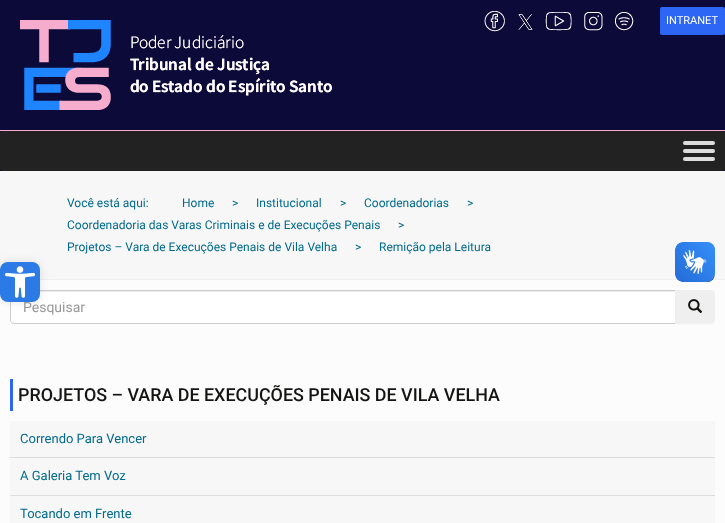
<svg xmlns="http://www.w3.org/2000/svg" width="725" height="523">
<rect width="100%" height="100%" fill="#fcfcfc"/>
<rect width="725" height="130" fill="#0c0a39"/>
<image x="20" y="20" width="312" height="90" href="media/1.png"/>
<image x="484" y="11" width="21" height="21" href="media/2.png"/>
<image x="518" y="14" width="15" height="16" href="media/3.png"/>
<image x="545" y="12" width="27" height="19" href="media/4.png"/>
<image x="584" y="12" width="19" height="19" href="media/5.png"/>
<image x="615" y="12" width="19" height="19" href="media/6.png"/>
<rect x="660" y="7" width="65" height="28" rx="2" fill="#2d66f4"/>
<text x="666" y="24" style="font-family:Roboto;font-size:11px;fill:#fff">INTRANET</text>
<rect y="131" width="725" height="40" fill="#0c0a39"/>
<rect y="130" width="725" height="1" fill="#f6adcd"/>
<rect y="131" width="725" height="40" rx="2" fill="#222"/>
<rect x="683" y="141" width="32" height="4" rx="2" fill="#ddd"/>
<rect x="683" y="149" width="32" height="4" rx="2" fill="#ddd"/>
<rect x="683" y="157" width="32" height="4" rx="2" fill="#ddd"/>
<rect y="171" width="725" height="108" fill="#f7f7f7"/>
<rect x="40" y="279" width="685" height="1" fill="#eee"/>
<text x="67" y="207" style="font-family:Roboto;font-size:12px;fill:#016a8d">Você está aqui:</text>
<text x="182" y="207" style="font-family:Roboto;font-size:12px;fill:#016a8d">Home</text>
<text x="232" y="207" style="font-family:Roboto;font-size:12px;fill:#016a8d">&gt;</text>
<text x="256" y="207" style="font-family:Roboto;font-size:12px;fill:#016a8d">Institucional</text>
<text x="340" y="207" style="font-family:Roboto;font-size:12px;fill:#016a8d">&gt;</text>
<text x="364" y="207" style="font-family:Roboto;font-size:12px;fill:#016a8d">Coordenadorias</text>
<text x="467" y="207" style="font-family:Roboto;font-size:12px;fill:#016a8d">&gt;</text>
<text x="67" y="229" style="font-family:Roboto;font-size:12px;fill:#016a8d">Coordenadoria das Varas Criminais e de Execuções Penais</text>
<text x="398" y="229" style="font-family:Roboto;font-size:12px;fill:#016a8d">&gt;</text>
<text x="67" y="251" style="font-family:Roboto;font-size:12px;fill:#016a8d">Projetos – Vara de Execuções Penais de Vila Velha</text>
<text x="355" y="251" style="font-family:Roboto;font-size:12px;fill:#016a8d">&gt;</text>
<text x="379" y="251" style="font-family:Roboto;font-size:12px;fill:#016a8d">Remição pela Leitura</text>
<path d="M14 290h662v34h-662c-2 0-4-2-4-4v-26c0-2 2-4 4-4z" fill="#fff"/>
<path d="M14 292h661v-1h-661c-2 0-3 1-3 3v1c0-2 1-3 3-3z" fill="#ececec"/>
<path d="M14 290.5h661.5v33h-661.5c-2 0-3.5-1.5-3.5-3.5v-26c0-2 1.5-3.5 3.5-3.5z" fill="none" stroke="#ccc"/>
<rect y="262" width="40" height="40" rx="8" fill="#0000001a" filter="blur(5px)"/>
<text x="23" y="312" style="font-family:Roboto;font-size:14px;fill:#999">Pesquisar</text>
<rect y="262" width="40" height="40" rx="8" fill="#2b7ae5"/>
<image x="5" y="266" width="30" height="32" href="media/7.png"/>
<image x="675" y="242" width="40" height="40" href="media/8.png"/>
<image x="675" y="242" width="40" height="40" href="media/9.png"/>
<path d="M675 290h36c2 0 4 2 4 4v26c0 2-2 4-4 4h-36z" fill="#efefef"/>
<image x="688" y="299" width="15" height="14" href="media/10.png"/>
<rect x="10" y="379" width="3" height="32" fill="#2d66f4"/>
<text x="18" y="401" style="font-family:Roboto;font-size:17.9px;font-weight:500;fill:#141412">PROJETOS – VARA DE EXECUÇÕES PENAIS DE VILA VELHA</text>
<rect x="10" y="421" width="705" height="36" fill="#f7f7f7"/>
<rect x="10" y="457" width="705" height="1" fill="#ddd"/>
<text x="20" y="443" style="font-family:Roboto;font-size:13px;fill:#016a8d">Correndo Para Vencer</text>
<rect x="10" y="458" width="705" height="37" fill="#f7f7f7"/>
<rect x="10" y="495" width="705" height="1" fill="#ddd"/>
<text x="20" y="480" style="font-family:Roboto;font-size:13px;fill:#016a8d">A Galeria Tem Voz</text>
<rect x="10" y="496" width="705" height="27" fill="#f7f7f7"/>
<text x="20" y="518" style="font-family:Roboto;font-size:13px;fill:#016a8d">Tocando em Frente</text>
</svg>
